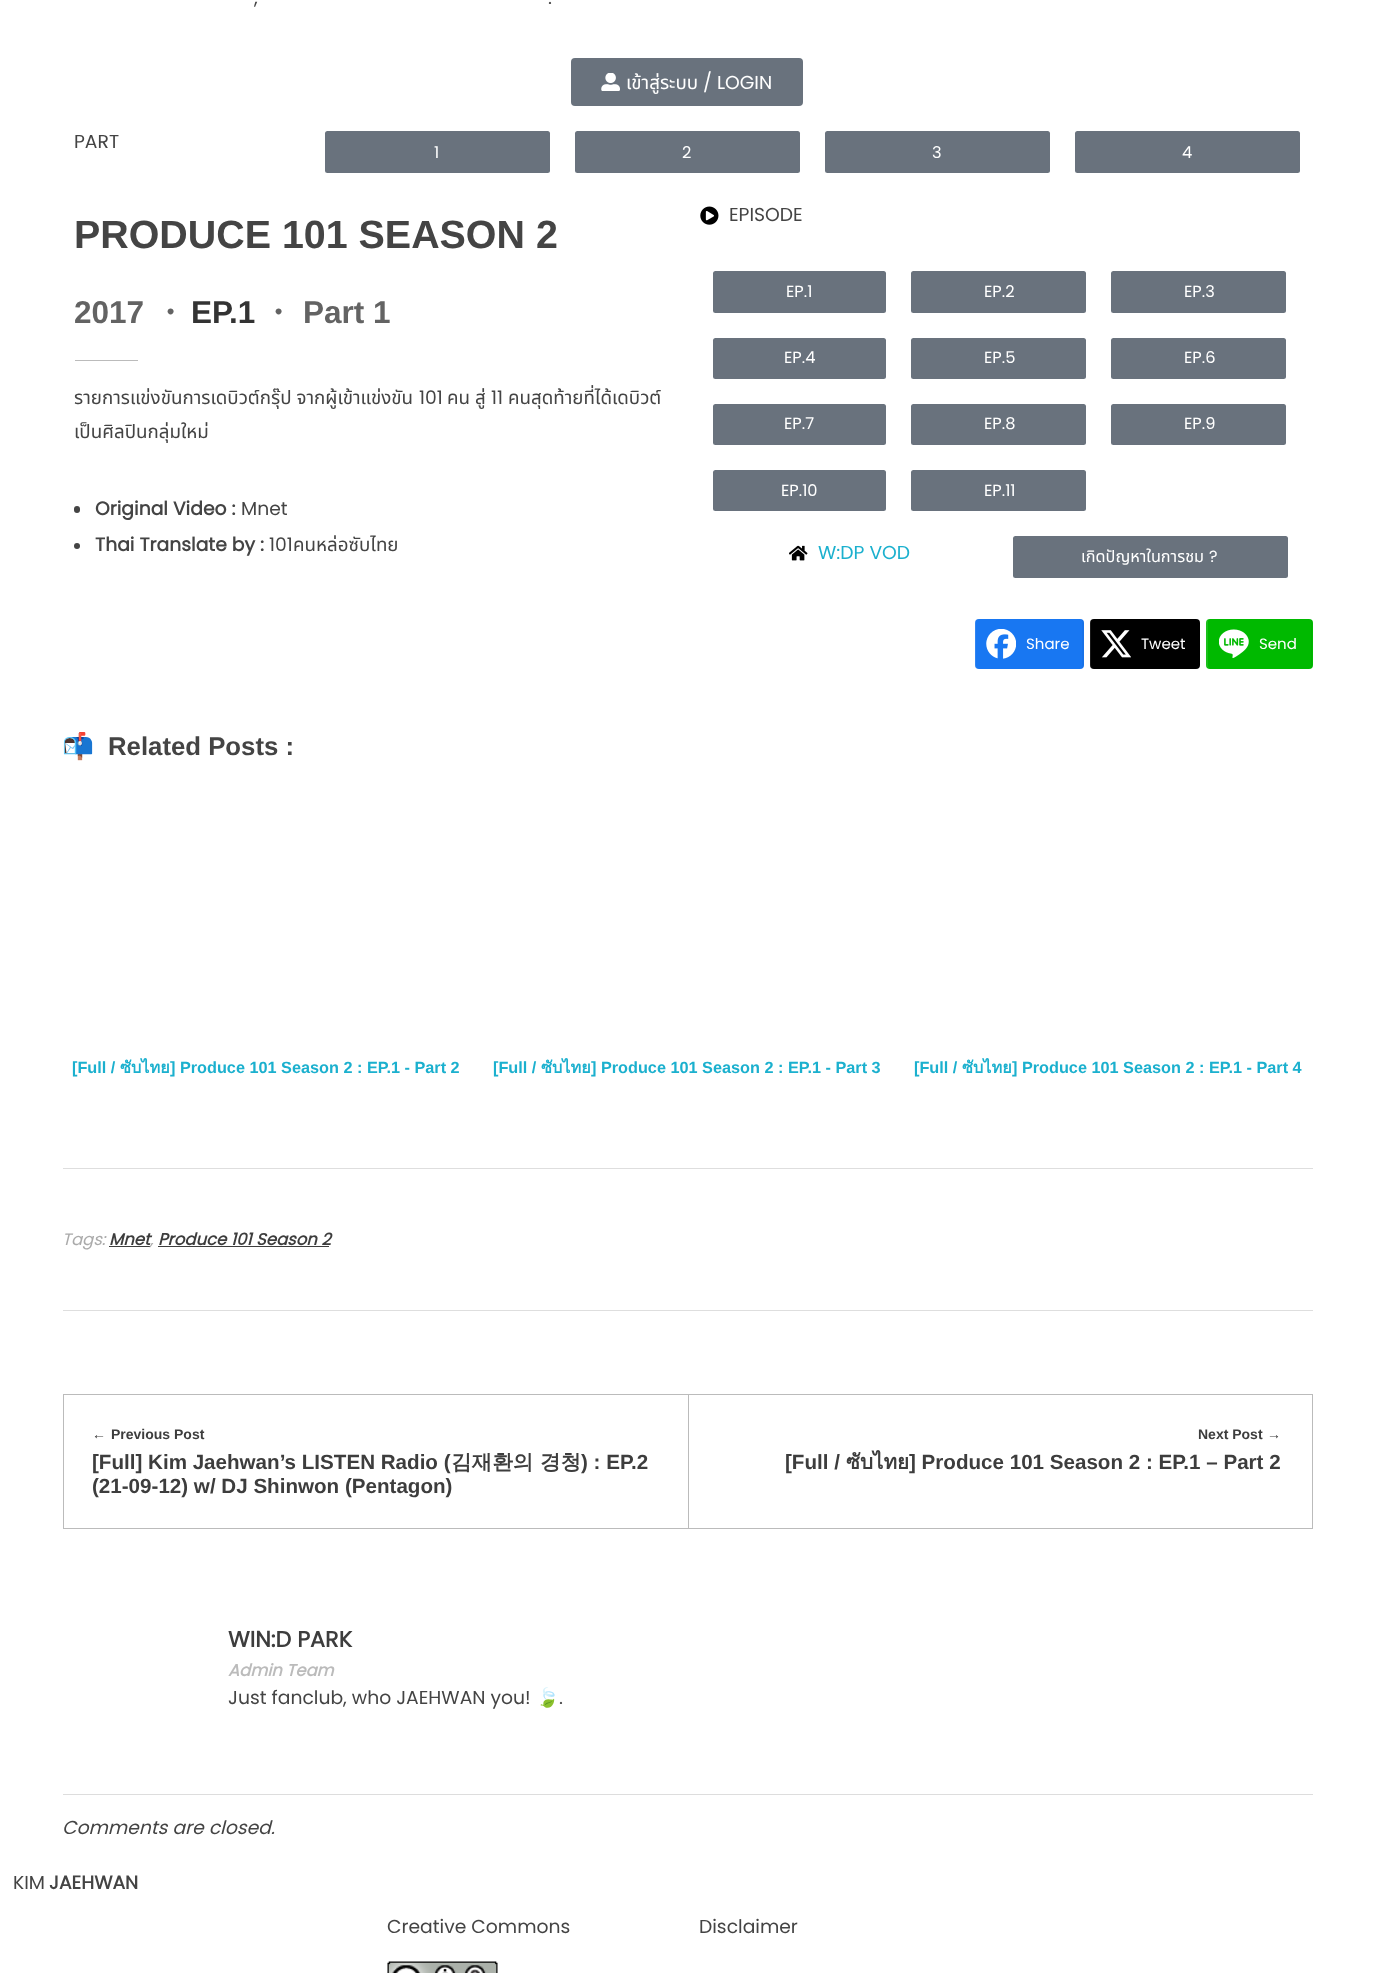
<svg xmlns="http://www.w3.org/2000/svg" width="1373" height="1973">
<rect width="100%" height="100%" fill="#fff"/>
<text x="254" y="4" style="font-family:Poppins;font-size:18.75px;fill:#444">,</text>
<text x="548" y="4" style="font-family:Poppins;font-size:18.75px;fill:#444">.</text>
<rect x="571" y="58" width="232" height="48" rx="4" fill="#69727d"/>
<image x="601" y="73" width="19" height="18" href="media/1.png"/>
<text x="626" y="89" style="font-family:Noto Sans Thai;font-size:18.75px;fill:#fff">เข้าสู่ระบบ</text>
<text x="703" y="89" style="font-family:Poppins;font-size:18.75px;fill:#fff">/ LOGIN</text>
<text x="74" y="148" style="font-family:Poppins;font-size:18.75px;fill:#444">PART</text>
<rect x="325" y="131" width="225" height="42" rx="2.5" fill="#69727d"/>
<text x="434" y="158" style="font-family:Poppins;font-size:16.25px;fill:#fff">1</text>
<rect x="575" y="131" width="225" height="42" rx="2.5" fill="#69727d"/>
<text x="682" y="158" style="font-family:Poppins;font-size:16.25px;fill:#fff">2</text>
<rect x="825" y="131" width="225" height="42" rx="2.5" fill="#69727d"/>
<text x="932" y="158" style="font-family:Poppins;font-size:16.25px;fill:#fff">3</text>
<rect x="1075" y="131" width="225" height="42" rx="2.5" fill="#69727d"/>
<text x="1182" y="158" style="font-family:Poppins;font-size:16.25px;fill:#fff">4</text>
<text x="74" y="248" style="font-family:Liberation Sans;font-size:39.4px;font-weight:bold;fill:#444">PRODUCE 101 SEASON 2</text>
<text x="74" y="323" style="font-family:Liberation Sans;font-size:31.5px;font-weight:bold;fill:#636363">2017</text>
<text x="154" y="323" style="font-family:WenQuanYi Zen Hei;font-size:31.5px;font-weight:bold;fill:#636363">・</text>
<text x="191" y="323" style="font-family:Liberation Sans;font-size:31.5px;font-weight:bold;fill:#333">EP.1</text>
<text x="262" y="323" style="font-family:WenQuanYi Zen Hei;font-size:31.5px;font-weight:bold;fill:#636363">・</text>
<text x="303" y="323" style="font-family:Liberation Sans;font-size:31.5px;font-weight:bold;fill:#636363">Part 1</text>
<rect x="75" y="360" width="63" height="1" fill="#bbb"/>
<text x="74" y="404" style="font-family:Noto Sans Thai;font-size:18.75px;fill:#444">รายการแข่งขันการเดบิวต์กรุ๊ป จากผู้เข้าแข่งขัน</text>
<text x="419" y="404" style="font-family:Poppins;font-size:18.75px;fill:#444">101</text>
<text x="447" y="404" style="font-family:Noto Sans Thai;font-size:18.75px;fill:#444">คน สู่</text>
<text x="491" y="404" style="font-family:Poppins;font-size:18.75px;fill:#444">11</text>
<text x="508" y="404" style="font-family:Noto Sans Thai;font-size:18.75px;fill:#444">คนสุดท้ายที่ได้เดบิวต์</text>
<text x="74" y="438" style="font-family:Noto Sans Thai;font-size:18.75px;fill:#444">เป็นศิลปินกลุ่มใหม่</text>
<rect x="74" y="506" width="6" height="7" rx="3" fill="#444"/>
<text x="95" y="515" style="font-family:Poppins;font-size:18.75px;font-weight:bold;fill:#444">Original Video :</text>
<text x="241" y="515" style="font-family:Poppins;font-size:18.75px;fill:#444">Mnet</text>
<circle cx="77" cy="546" r="3" fill="#444"/>
<text x="95" y="551" style="font-family:Poppins;font-size:18.75px;font-weight:bold;fill:#444">Thai Translate by :</text>
<text x="269" y="551" style="font-family:Poppins;font-size:18.75px;fill:#444">101</text>
<text x="293" y="551" style="font-family:Noto Sans Thai;font-size:18.75px;fill:#444">คนหล่อซับไทย</text>
<image x="700" y="206" width="19" height="19" href="media/2.png"/>
<text x="729" y="221" style="font-family:Poppins;font-size:18.75px;fill:#444">EPISODE</text>
<rect x="713" y="271" width="173" height="42" rx="2.5" fill="#69727d"/>
<text x="786" y="297" style="font-family:Poppins;font-size:16.25px;fill:#fff">EP.1</text>
<rect x="911" y="271" width="175" height="42" rx="2.5" fill="#69727d"/>
<text x="984" y="297" style="font-family:Poppins;font-size:16.25px;fill:#fff">EP.2</text>
<rect x="1111" y="271" width="175" height="42" rx="2.5" fill="#69727d"/>
<text x="1184" y="297" style="font-family:Poppins;font-size:16.25px;fill:#fff">EP.3</text>
<rect x="713" y="338" width="173" height="41" rx="2.5" fill="#69727d"/>
<text x="784" y="363" style="font-family:Poppins;font-size:16.25px;fill:#fff">EP.4</text>
<rect x="911" y="338" width="175" height="41" rx="2.5" fill="#69727d"/>
<text x="984" y="363" style="font-family:Poppins;font-size:16.25px;fill:#fff">EP.5</text>
<rect x="1111" y="338" width="175" height="41" rx="2.5" fill="#69727d"/>
<text x="1184" y="363" style="font-family:Poppins;font-size:16.25px;fill:#fff">EP.6</text>
<rect x="713" y="404" width="173" height="41" rx="2.5" fill="#69727d"/>
<text x="784" y="429" style="font-family:Poppins;font-size:16.25px;fill:#fff">EP.7</text>
<rect x="911" y="404" width="175" height="41" rx="2.5" fill="#69727d"/>
<text x="984" y="429" style="font-family:Poppins;font-size:16.25px;fill:#fff">EP.8</text>
<rect x="1111" y="404" width="175" height="41" rx="2.5" fill="#69727d"/>
<text x="1184" y="429" style="font-family:Poppins;font-size:16.25px;fill:#fff">EP.9</text>
<rect x="713" y="470" width="173" height="41" rx="2.5" fill="#69727d"/>
<text x="781" y="496" style="font-family:Poppins;font-size:16.25px;fill:#fff">EP.10</text>
<rect x="911" y="470" width="175" height="41" rx="2.5" fill="#69727d"/>
<text x="984" y="496" style="font-family:Poppins;font-size:16.25px;fill:#fff">EP.11</text>
<image x="789" y="545" width="19" height="16" href="media/3.png"/>
<text x="818" y="559" style="font-family:Poppins;font-size:18.75px;fill:#1bb0ce">W:DP VOD</text>
<rect x="1013" y="536" width="275" height="42" rx="2.5" fill="#69727d"/>
<text x="1081" y="562" style="font-family:Noto Sans Thai;font-size:16.25px;fill:#fff">เกิดปัญหาในการชม</text>
<text x="1209" y="562" style="font-family:Poppins;font-size:16.25px;fill:#fff">?</text>
<rect x="975" y="619" width="109" height="50" rx="4" fill="#1877f2"/>
<path d="M1081 669c0-1 1-2 1-4v-43c0-2-1-3-2-3c2 0 3 1 4 2v45c-1 1-2 2-3 3z" fill="#0000000a"/>
<path d="M978 669c-2-1-3-2-3-4v-43c0-2 2-3 4-3c-2 0-3 1-3 3v43c0 2 1 3 2 4z" fill="#ffffff1a"/>
<image x="986" y="629" width="30" height="30" href="media/4.png"/>
<text x="1026" y="649" style="font-family:Poppins;font-size:15px;fill:#fff">Share</text>
<rect x="1090" y="619" width="110" height="50" rx="4" fill="#000"/>
<path d="M1197 669c1-1 2-2 2-4v-43c0-2-1-3-3-3c2 0 4 1 4 3v43c0 2-1 3-3 4z" fill="#0000000a"/>
<path d="M1094 619c-2 0-3 1-3 3v43c0 2 1 3 2 4c-2-1-3-2-3-4v-43c0-2 2-3 4-3z" fill="#ffffff1a"/>
<image x="1101" y="630" width="30" height="28" href="media/5.png"/>
<text x="1141" y="649" style="font-family:Poppins;font-size:15px;fill:#fff">Tweet</text>
<rect x="1206" y="619" width="107" height="50" rx="4" fill="#00b900"/>
<path d="M1310 669c0-1 1-2 1-4v-43c0-2-1-3-2-3c2 0 3 1 3 3v43c0 2-1 3-2 4z" fill="#0000000a"/>
<path d="M1210 619c-1 0-2 1-2 3v43c0 2 1 3 1 4c-1-1-2-2-3-3v-45c1-1 2-2 4-2z" fill="#ffffff1a"/>
<image x="1219" y="629" width="30" height="29" href="media/6.png"/>
<text x="1259" y="649" style="font-family:Poppins;font-size:15px;fill:#fff">Send</text>
<text x="62" y="755" style="font-family:Noto Color Emoji;font-size:25.75px;font-weight:bold;fill:#444">📬</text>
<text x="108" y="755" style="font-family:Liberation Sans;font-size:25.75px;font-weight:bold;fill:#444">Related Posts :</text>
<text x="72" y="1073" style="font-family:Liberation Sans;font-size:16.25px;font-weight:bold;fill:#1bb0ce">[Full /</text>
<text x="120" y="1073" style="font-family:Loma;font-size:16.25px;font-weight:bold;fill:#1bb0ce">ซับไทย</text>
<text x="170" y="1073" style="font-family:Liberation Sans;font-size:16.25px;font-weight:bold;fill:#1bb0ce">] Produce 101 Season 2 : EP.1 - Part 2</text>
<text x="493" y="1073" style="font-family:Liberation Sans;font-size:16.25px;font-weight:bold;fill:#1bb0ce">[Full /</text>
<text x="541" y="1073" style="font-family:Loma;font-size:16.25px;font-weight:bold;fill:#1bb0ce">ซับไทย</text>
<text x="591" y="1073" style="font-family:Liberation Sans;font-size:16.25px;font-weight:bold;fill:#1bb0ce">] Produce 101 Season 2 : EP.1 - Part 3</text>
<text x="914" y="1073" style="font-family:Liberation Sans;font-size:16.25px;font-weight:bold;fill:#1bb0ce">[Full /</text>
<text x="962" y="1073" style="font-family:Loma;font-size:16.25px;font-weight:bold;fill:#1bb0ce">ซับไทย</text>
<text x="1012" y="1073" style="font-family:Liberation Sans;font-size:16.25px;font-weight:bold;fill:#1bb0ce">] Produce 101 Season 2 : EP.1 - Part 4</text>
<rect x="63" y="1168" width="1250" height="1" fill="#dedede"/>
<rect x="63" y="1310" width="1250" height="1" fill="#dedede"/>
<text x="62" y="1245" style="font-family:Poppins;font-size:16.5px;font-style:italic;fill:#aaa">Tags:</text>
<text x="109" y="1245" style="font-family:Poppins;font-size:16.5px;font-weight:bold;font-style:italic;fill:#3d3d3d">Mnet</text>
<rect x="109" y="1246" width="41" height="1" fill="#3d3d3d"/>
<text x="158" y="1245" style="font-family:Poppins;font-size:16.5px;font-weight:bold;font-style:italic;fill:#3d3d3d">Produce 101 Season 2</text>
<rect x="158" y="1246" width="171" height="1" fill="#3d3d3d"/>
<text x="150" y="1245" style="font-family:Poppins;font-size:16.5px;font-style:italic;fill:#aaa">,</text>
<rect x="63" y="1394" width="625" height="1" fill="#bbb"/>
<rect x="63" y="1528" width="625" height="1" fill="#bbb"/>
<rect x="63" y="1394" width="1" height="135" fill="#bbb"/>
<text x="92" y="1439" style="font-family:Liberation Sans;font-size:14px;font-weight:bold;fill:#3d3d3d">←</text>
<text x="111" y="1439" style="font-family:Liberation Sans;font-size:14px;font-weight:bold;fill:#3d3d3d">Previous Post</text>
<text x="92" y="1469" style="font-family:Liberation Sans;font-size:20.6px;font-weight:bold;fill:#3d3d3d">[Full] Kim Jaehwan’s LISTEN Radio (</text>
<text x="451" y="1469" style="font-family:WenQuanYi Zen Hei;font-size:20.6px;font-weight:bold;fill:#3d3d3d">김재환의</text>
<text x="540" y="1469" style="font-family:WenQuanYi Zen Hei;font-size:20.6px;font-weight:bold;fill:#3d3d3d">경청</text>
<text x="581" y="1469" style="font-family:Liberation Sans;font-size:20.6px;font-weight:bold;fill:#3d3d3d">) : EP.2</text>
<text x="92" y="1493" style="font-family:Liberation Sans;font-size:20.6px;font-weight:bold;fill:#3d3d3d">(21-09-12) w/ DJ Shinwon (Pentagon)</text>
<rect x="688.5" y="1394.5" width="624" height="134" fill="none" stroke="#bbb"/>
<text x="1198" y="1439" style="font-family:Liberation Sans;font-size:14px;font-weight:bold;fill:#3d3d3d">Next Post</text>
<text x="1267" y="1439" style="font-family:Liberation Sans;font-size:14px;font-weight:bold;fill:#3d3d3d">→</text>
<text x="785" y="1469" style="font-family:Liberation Sans;font-size:20.6px;font-weight:bold;fill:#3d3d3d">[Full /</text>
<text x="846" y="1469" style="font-family:Loma;font-size:20.6px;font-weight:bold;fill:#3d3d3d">ซับไทย</text>
<text x="909" y="1469" style="font-family:Liberation Sans;font-size:20.6px;font-weight:bold;fill:#3d3d3d">] Produce 101 Season 2 : EP.1 – Part 2</text>
<text x="228" y="1647" style="font-family:Poppins;font-size:22.25px;font-weight:bold;fill:#3d3d3d">WIN:D PARK</text>
<text x="228" y="1676" style="font-family:Poppins;font-size:16.5px;font-weight:bold;font-style:italic;fill:#bbb">Admin Team</text>
<text x="228" y="1704" style="font-family:Poppins;font-size:18.75px;fill:#444">Just fanclub, who JAEHWAN you!</text>
<text x="536" y="1704" style="font-family:Noto Color Emoji;font-size:18.75px;fill:#444">🍃</text>
<text x="559" y="1704" style="font-family:Poppins;font-size:18.75px;fill:#444">.</text>
<rect x="63" y="1794" width="1250" height="1" fill="#ddd"/>
<text x="62" y="1834" style="font-family:Poppins;font-size:18.75px;font-style:italic;fill:#444">Comments are closed.</text>
<text x="13" y="1889" style="font-family:Poppins;font-size:18.75px;fill:#444">KIM</text>
<text x="49" y="1889" style="font-family:Poppins;font-size:18.75px;font-weight:bold;fill:#444">JAEHWAN</text>
<text x="387" y="1933" style="font-family:Poppins;font-size:18.75px;fill:#444">Creative Commons</text>
<image x="387" y="1961" width="111" height="12" href="media/7.png"/>
<text x="699" y="1933" style="font-family:Poppins;font-size:18.75px;fill:#444">Disclaimer</text>
</svg>
